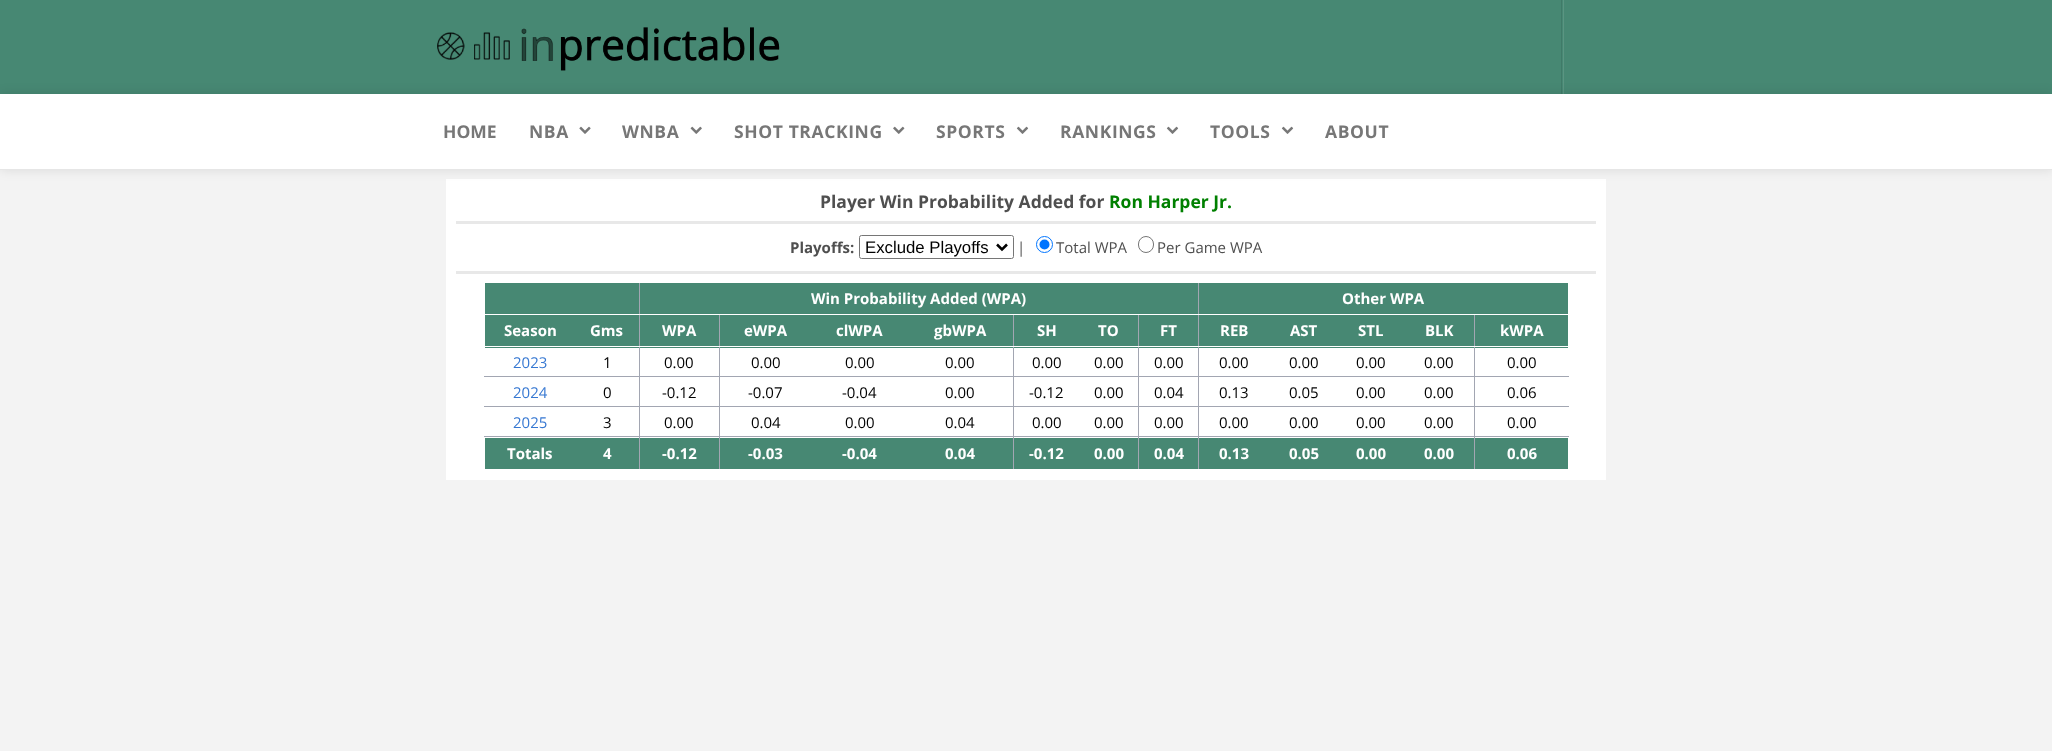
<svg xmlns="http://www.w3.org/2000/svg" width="2052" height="751">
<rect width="100%" height="100%" fill="#f3f3f3"/>
<rect width="2052" height="94" fill="#478873"/>
<rect x="1563" width="1" height="94" fill="#5b9582"/>
<rect x="1561" width="1" height="94" fill="#407a68"/>
<image x="437" y="27" width="343" height="44" href="media/1.png"/>
<rect x="446" y="179" width="1160" height="301" fill="#fff"/>
<rect y="94" width="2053" height="76" fill="#0000001a" filter="blur(6px)"/>
<rect y="94" width="2052" height="75" fill="#fff"/>
<rect y="169" width="2052" height="1" fill="#e6e6e6"/>
<text x="443" y="138" style="font-family:Open Sans;font-size:17.5px;font-weight:bold;fill:#777">HOME</text>
<text x="529" y="138" style="font-family:Open Sans;font-size:17.5px;font-weight:bold;letter-spacing:0.6px;fill:#777">NBA</text>
<image x="579" y="126" width="12" height="8" href="media/2.png"/>
<text x="622" y="138" style="font-family:Open Sans;font-size:17.5px;font-weight:bold;letter-spacing:0.6px;fill:#777">WNBA</text>
<image x="690" y="126" width="12" height="8" href="media/3.png"/>
<text x="734" y="138" style="font-family:Open Sans;font-size:17.5px;font-weight:bold;letter-spacing:0.6px;fill:#777">SHOT TRACKING</text>
<image x="893" y="126" width="12" height="8" href="media/4.png"/>
<text x="936" y="138" style="font-family:Open Sans;font-size:17.5px;font-weight:bold;letter-spacing:0.6px;fill:#777">SPORTS</text>
<image x="1016" y="126" width="13" height="8" href="media/5.png"/>
<text x="1060" y="138" style="font-family:Open Sans;font-size:17.5px;font-weight:bold;letter-spacing:0.6px;fill:#777">RANKINGS</text>
<image x="1166" y="126" width="13" height="8" href="media/5.png"/>
<text x="1210" y="138" style="font-family:Open Sans;font-size:17.5px;font-weight:bold;letter-spacing:0.6px;fill:#777">TOOLS</text>
<image x="1281" y="126" width="13" height="8" href="media/5.png"/>
<text x="1325" y="138" style="font-family:Open Sans;font-size:17.5px;font-weight:bold;letter-spacing:0.6px;fill:#777">ABOUT</text>
<text x="820" y="208" style="font-family:Open Sans;font-size:17.5px;font-weight:bold;fill:#4f4f4f">Player Win Probability Added for</text>
<text x="1109" y="208" style="font-family:Open Sans;font-size:17.5px;font-weight:bold;fill:#008000">Ron Harper Jr.</text>
<rect x="456" y="221" width="1140" height="3" fill="#e8e8e8"/>
<text x="790" y="253" style="font-family:Open Sans;font-size:15px;font-weight:bold;fill:#4f4f4f">Playoffs:</text>
<rect x="859.5" y="235.5" width="154" height="23" rx="2" fill="none" stroke="#767676"/>
<path d="M997 244.5l5 5l5-5" fill="none" stroke="#000" stroke-width="2.5"/>
<text x="865" y="253" style="font-family:Liberation Sans;font-size:16.75px;fill:#000">Exclude Playoffs</text>
<text x="1017" y="253" style="font-family:Open Sans;font-size:15px;fill:#4f4f4f">|</text>
<circle cx="1044.5" cy="244.5" r="8" fill="none" stroke="#0075ff"/>
<circle cx="1044.5" cy="244.5" r="5" fill="#0075ff"/>
<text x="1056" y="253" style="font-family:Open Sans;font-size:15px;fill:#4f4f4f">Total WPA</text>
<rect x="1138.5" y="236.5" width="15" height="16" rx="7.5" fill="none" stroke="#767676"/>
<text x="1157" y="253" style="font-family:Open Sans;font-size:15px;fill:#4f4f4f">Per Game WPA</text>
<rect x="456" y="271" width="1140" height="3" fill="#e8e8e8"/>
<rect x="485" y="283" width="154" height="31" fill="#478873"/>
<rect x="1199" y="315" width="275" height="33" fill="#478873"/>
<rect x="1475" y="315" width="93" height="33" fill="#478873"/>
<rect x="1474" y="436" width="1" height="34" fill="#a2a6b2"/>
<rect x="1474" y="436" width="95" height="1" fill="#a2a6b2"/>
<rect x="1474" y="406" width="1" height="32" fill="#a2a6b2"/>
<rect x="1474" y="406" width="95" height="1" fill="#a2a6b2"/>
<rect x="1474" y="376" width="1" height="32" fill="#a2a6b2"/>
<rect x="1474" y="376" width="95" height="1" fill="#a2a6b2"/>
<rect x="1474" y="346" width="1" height="32" fill="#a2a6b2"/>
<rect x="1474" y="346" width="95" height="1" fill="#fff"/>
<rect x="1474" y="314" width="1" height="34" fill="#a2a6b2"/>
<rect x="1198" y="436" width="1" height="34" fill="#a2a6b2"/>
<rect x="1198" y="436" width="277" height="1" fill="#a2a6b2"/>
<rect x="1198" y="406" width="1" height="32" fill="#a2a6b2"/>
<rect x="1198" y="406" width="277" height="1" fill="#a2a6b2"/>
<rect x="1198" y="376" width="1" height="32" fill="#a2a6b2"/>
<rect x="1198" y="376" width="277" height="1" fill="#a2a6b2"/>
<rect x="1198" y="346" width="1" height="32" fill="#a2a6b2"/>
<rect x="1198" y="346" width="277" height="1" fill="#fff"/>
<rect x="1198" y="314" width="1" height="34" fill="#a2a6b2"/>
<rect x="1198" y="314" width="277" height="1" fill="#fff"/>
<rect x="1198" y="283" width="1" height="32" fill="#a2a6b2"/>
<rect x="640" y="315" width="79" height="33" fill="#478873"/>
<rect x="720" y="315" width="293" height="33" fill="#478873"/>
<rect x="1014" y="315" width="124" height="33" fill="#478873"/>
<rect x="1139" y="315" width="59" height="33" fill="#478873"/>
<rect x="1138" y="436" width="1" height="34" fill="#a2a6b2"/>
<rect x="1138" y="436" width="61" height="1" fill="#a2a6b2"/>
<rect x="1138" y="406" width="1" height="32" fill="#a2a6b2"/>
<rect x="1138" y="406" width="61" height="1" fill="#a2a6b2"/>
<rect x="1138" y="376" width="1" height="32" fill="#a2a6b2"/>
<rect x="1138" y="376" width="61" height="1" fill="#a2a6b2"/>
<rect x="1138" y="346" width="1" height="32" fill="#a2a6b2"/>
<rect x="1138" y="346" width="61" height="1" fill="#fff"/>
<rect x="1138" y="314" width="1" height="34" fill="#a2a6b2"/>
<rect x="1013" y="436" width="1" height="34" fill="#a2a6b2"/>
<rect x="1013" y="436" width="126" height="1" fill="#a2a6b2"/>
<rect x="1013" y="406" width="1" height="32" fill="#a2a6b2"/>
<rect x="1013" y="406" width="126" height="1" fill="#a2a6b2"/>
<rect x="1013" y="376" width="1" height="32" fill="#a2a6b2"/>
<rect x="1013" y="376" width="126" height="1" fill="#a2a6b2"/>
<rect x="1013" y="346" width="1" height="32" fill="#a2a6b2"/>
<rect x="1013" y="346" width="126" height="1" fill="#fff"/>
<rect x="1013" y="314" width="1" height="34" fill="#a2a6b2"/>
<rect x="719" y="436" width="1" height="34" fill="#a2a6b2"/>
<rect x="719" y="436" width="295" height="1" fill="#a2a6b2"/>
<rect x="719" y="406" width="1" height="32" fill="#a2a6b2"/>
<rect x="719" y="406" width="295" height="1" fill="#a2a6b2"/>
<rect x="719" y="376" width="1" height="32" fill="#a2a6b2"/>
<rect x="719" y="376" width="295" height="1" fill="#a2a6b2"/>
<rect x="719" y="346" width="1" height="32" fill="#a2a6b2"/>
<rect x="719" y="346" width="295" height="1" fill="#fff"/>
<rect x="719" y="314" width="1" height="34" fill="#a2a6b2"/>
<rect x="639" y="436" width="1" height="34" fill="#a2a6b2"/>
<rect x="639" y="436" width="81" height="1" fill="#a2a6b2"/>
<rect x="639" y="406" width="1" height="32" fill="#a2a6b2"/>
<rect x="639" y="406" width="81" height="1" fill="#a2a6b2"/>
<rect x="639" y="376" width="1" height="32" fill="#a2a6b2"/>
<rect x="639" y="376" width="81" height="1" fill="#a2a6b2"/>
<rect x="639" y="346" width="1" height="32" fill="#a2a6b2"/>
<rect x="639" y="346" width="81" height="1" fill="#fff"/>
<rect x="639" y="314" width="1" height="34" fill="#a2a6b2"/>
<rect x="639" y="314" width="560" height="1" fill="#fff"/>
<rect x="639" y="283" width="1" height="32" fill="#a2a6b2"/>
<rect x="639" y="314" width="1" height="1" fill="#fff"/>
<rect x="640" y="283" width="558" height="31" fill="#478873"/>
<text x="811" y="304" style="font-family:Open Sans;font-size:15px;font-weight:bold;fill:#fff">Win Probability Added (WPA)</text>
<rect x="1199" y="283" width="369" height="31" fill="#478873"/>
<text x="1342" y="304" style="font-family:Open Sans;font-size:15px;font-weight:bold;fill:#fff">Other WPA</text>
<rect x="485" y="315" width="154" height="33" fill="#478873"/>
<text x="504" y="336" style="font-family:Open Sans;font-size:15px;font-weight:bold;fill:#fff">Season</text>
<rect x="484" y="346" width="156" height="1" fill="#fff"/>
<text x="590" y="336" style="font-family:Open Sans;font-size:15px;font-weight:bold;fill:#fff">Gms</text>
<text x="662" y="336" style="font-family:Open Sans;font-size:15px;font-weight:bold;fill:#fff">WPA</text>
<rect x="656" y="346" width="45" height="1" fill="#478873"/>
<rect x="656" y="346" width="45" height="1" fill="#fff"/>
<text x="744" y="336" style="font-family:Open Sans;font-size:15px;font-weight:bold;fill:#fff">eWPA</text>
<rect x="739" y="346" width="54" height="1" fill="#478873"/>
<rect x="739" y="346" width="54" height="1" fill="#fff"/>
<text x="836" y="336" style="font-family:Open Sans;font-size:15px;font-weight:bold;fill:#fff">clWPA</text>
<rect x="831" y="346" width="57" height="1" fill="#478873"/>
<rect x="831" y="346" width="57" height="1" fill="#fff"/>
<text x="934" y="336" style="font-family:Open Sans;font-size:15px;font-weight:bold;fill:#fff">gbWPA</text>
<rect x="929" y="346" width="62" height="1" fill="#478873"/>
<rect x="929" y="346" width="62" height="1" fill="#fff"/>
<text x="1037" y="336" style="font-family:Open Sans;font-size:15px;font-weight:bold;fill:#fff">SH</text>
<rect x="1031" y="346" width="30" height="1" fill="#478873"/>
<rect x="1031" y="346" width="30" height="1" fill="#fff"/>
<text x="1098" y="336" style="font-family:Open Sans;font-size:15px;font-weight:bold;fill:#fff">TO</text>
<rect x="1094" y="346" width="30" height="1" fill="#478873"/>
<rect x="1094" y="346" width="30" height="1" fill="#fff"/>
<text x="1160" y="336" style="font-family:Open Sans;font-size:15px;font-weight:bold;fill:#fff">FT</text>
<rect x="1155" y="346" width="28" height="1" fill="#478873"/>
<rect x="1155" y="346" width="28" height="1" fill="#fff"/>
<text x="1220" y="336" style="font-family:Open Sans;font-size:15px;font-weight:bold;fill:#fff">REB</text>
<rect x="1215" y="346" width="39" height="1" fill="#478873"/>
<rect x="1215" y="346" width="39" height="1" fill="#fff"/>
<text x="1290" y="336" style="font-family:Open Sans;font-size:15px;font-weight:bold;fill:#fff">AST</text>
<rect x="1285" y="346" width="38" height="1" fill="#478873"/>
<rect x="1285" y="346" width="38" height="1" fill="#fff"/>
<text x="1358" y="336" style="font-family:Open Sans;font-size:15px;font-weight:bold;fill:#fff">STL</text>
<rect x="1353" y="346" width="36" height="1" fill="#478873"/>
<rect x="1353" y="346" width="36" height="1" fill="#fff"/>
<text x="1425" y="336" style="font-family:Open Sans;font-size:15px;font-weight:bold;fill:#fff">BLK</text>
<rect x="1420" y="346" width="38" height="1" fill="#478873"/>
<rect x="1420" y="346" width="38" height="1" fill="#fff"/>
<text x="1500" y="336" style="font-family:Open Sans;font-size:15px;font-weight:bold;fill:#fff">kWPA</text>
<rect x="1495" y="346" width="54" height="1" fill="#478873"/>
<rect x="1495" y="346" width="54" height="1" fill="#fff"/>
<text x="513" y="368" style="font-family:Open Sans;font-size:15px;fill:#3778d2">2023</text>
<rect x="484" y="376" width="156" height="1" fill="#a2a6b2"/>
<text x="603" y="368" style="font-family:Open Sans;font-size:15px;fill:#000">1</text>
<text x="664" y="368" style="font-family:Open Sans;font-size:15px;fill:#000">0.00</text>
<text x="751" y="368" style="font-family:Open Sans;font-size:15px;fill:#000">0.00</text>
<text x="845" y="368" style="font-family:Open Sans;font-size:15px;fill:#000">0.00</text>
<text x="945" y="368" style="font-family:Open Sans;font-size:15px;fill:#000">0.00</text>
<text x="1032" y="368" style="font-family:Open Sans;font-size:15px;fill:#000">0.00</text>
<text x="1094" y="368" style="font-family:Open Sans;font-size:15px;fill:#000">0.00</text>
<text x="1154" y="368" style="font-family:Open Sans;font-size:15px;fill:#000">0.00</text>
<text x="1219" y="368" style="font-family:Open Sans;font-size:15px;fill:#000">0.00</text>
<text x="1289" y="368" style="font-family:Open Sans;font-size:15px;fill:#000">0.00</text>
<text x="1356" y="368" style="font-family:Open Sans;font-size:15px;fill:#000">0.00</text>
<text x="1424" y="368" style="font-family:Open Sans;font-size:15px;fill:#000">0.00</text>
<text x="1507" y="368" style="font-family:Open Sans;font-size:15px;fill:#000">0.00</text>
<text x="513" y="398" style="font-family:Open Sans;font-size:15px;fill:#3778d2">2024</text>
<rect x="484" y="406" width="156" height="1" fill="#a2a6b2"/>
<text x="603" y="398" style="font-family:Open Sans;font-size:15px;fill:#000">0</text>
<text x="662" y="398" style="font-family:Open Sans;font-size:15px;fill:#000">-0.12</text>
<text x="748" y="398" style="font-family:Open Sans;font-size:15px;fill:#000">-0.07</text>
<text x="842" y="398" style="font-family:Open Sans;font-size:15px;fill:#000">-0.04</text>
<text x="945" y="398" style="font-family:Open Sans;font-size:15px;fill:#000">0.00</text>
<text x="1029" y="398" style="font-family:Open Sans;font-size:15px;fill:#000">-0.12</text>
<text x="1094" y="398" style="font-family:Open Sans;font-size:15px;fill:#000">0.00</text>
<text x="1154" y="398" style="font-family:Open Sans;font-size:15px;fill:#000">0.04</text>
<text x="1219" y="398" style="font-family:Open Sans;font-size:15px;fill:#000">0.13</text>
<text x="1289" y="398" style="font-family:Open Sans;font-size:15px;fill:#000">0.05</text>
<text x="1356" y="398" style="font-family:Open Sans;font-size:15px;fill:#000">0.00</text>
<text x="1424" y="398" style="font-family:Open Sans;font-size:15px;fill:#000">0.00</text>
<text x="1507" y="398" style="font-family:Open Sans;font-size:15px;fill:#000">0.06</text>
<text x="513" y="428" style="font-family:Open Sans;font-size:15px;fill:#3778d2">2025</text>
<rect x="484" y="436" width="156" height="1" fill="#a2a6b2"/>
<text x="603" y="428" style="font-family:Open Sans;font-size:15px;fill:#000">3</text>
<text x="664" y="428" style="font-family:Open Sans;font-size:15px;fill:#000">0.00</text>
<text x="751" y="428" style="font-family:Open Sans;font-size:15px;fill:#000">0.04</text>
<text x="845" y="428" style="font-family:Open Sans;font-size:15px;fill:#000">0.00</text>
<text x="945" y="428" style="font-family:Open Sans;font-size:15px;fill:#000">0.04</text>
<text x="1032" y="428" style="font-family:Open Sans;font-size:15px;fill:#000">0.00</text>
<text x="1094" y="428" style="font-family:Open Sans;font-size:15px;fill:#000">0.00</text>
<text x="1154" y="428" style="font-family:Open Sans;font-size:15px;fill:#000">0.00</text>
<text x="1219" y="428" style="font-family:Open Sans;font-size:15px;fill:#000">0.00</text>
<text x="1289" y="428" style="font-family:Open Sans;font-size:15px;fill:#000">0.00</text>
<text x="1356" y="428" style="font-family:Open Sans;font-size:15px;fill:#000">0.00</text>
<text x="1424" y="428" style="font-family:Open Sans;font-size:15px;fill:#000">0.00</text>
<text x="1507" y="428" style="font-family:Open Sans;font-size:15px;fill:#000">0.00</text>
<rect x="485" y="438" width="154" height="31" fill="#478873"/>
<text x="507" y="459" style="font-family:Open Sans;font-size:15px;font-weight:bold;fill:#fff">Totals</text>
<rect x="639" y="469" width="1" height="1" fill="#fff"/>
<text x="603" y="459" style="font-family:Open Sans;font-size:15px;font-weight:bold;fill:#fff">4</text>
<rect x="640" y="438" width="79" height="31" fill="#478873"/>
<rect x="719" y="469" width="1" height="1" fill="#fff"/>
<text x="662" y="459" style="font-family:Open Sans;font-size:15px;font-weight:bold;fill:#fff">-0.12</text>
<rect x="720" y="438" width="293" height="31" fill="#478873"/>
<text x="748" y="459" style="font-family:Open Sans;font-size:15px;font-weight:bold;fill:#fff">-0.03</text>
<text x="842" y="459" style="font-family:Open Sans;font-size:15px;font-weight:bold;fill:#fff">-0.04</text>
<rect x="1013" y="469" width="1" height="1" fill="#fff"/>
<text x="945" y="459" style="font-family:Open Sans;font-size:15px;font-weight:bold;fill:#fff">0.04</text>
<rect x="1014" y="438" width="124" height="31" fill="#478873"/>
<text x="1029" y="459" style="font-family:Open Sans;font-size:15px;font-weight:bold;fill:#fff">-0.12</text>
<rect x="1138" y="469" width="1" height="1" fill="#fff"/>
<text x="1094" y="459" style="font-family:Open Sans;font-size:15px;font-weight:bold;fill:#fff">0.00</text>
<rect x="1139" y="438" width="59" height="31" fill="#478873"/>
<rect x="1198" y="469" width="1" height="1" fill="#fff"/>
<text x="1154" y="459" style="font-family:Open Sans;font-size:15px;font-weight:bold;fill:#fff">0.04</text>
<rect x="1199" y="438" width="275" height="31" fill="#478873"/>
<text x="1219" y="459" style="font-family:Open Sans;font-size:15px;font-weight:bold;fill:#fff">0.13</text>
<text x="1289" y="459" style="font-family:Open Sans;font-size:15px;font-weight:bold;fill:#fff">0.05</text>
<text x="1356" y="459" style="font-family:Open Sans;font-size:15px;font-weight:bold;fill:#fff">0.00</text>
<rect x="1474" y="469" width="1" height="1" fill="#fff"/>
<text x="1424" y="459" style="font-family:Open Sans;font-size:15px;font-weight:bold;fill:#fff">0.00</text>
<rect x="1475" y="438" width="93" height="31" fill="#478873"/>
<text x="1507" y="459" style="font-family:Open Sans;font-size:15px;font-weight:bold;fill:#fff">0.06</text>
</svg>
